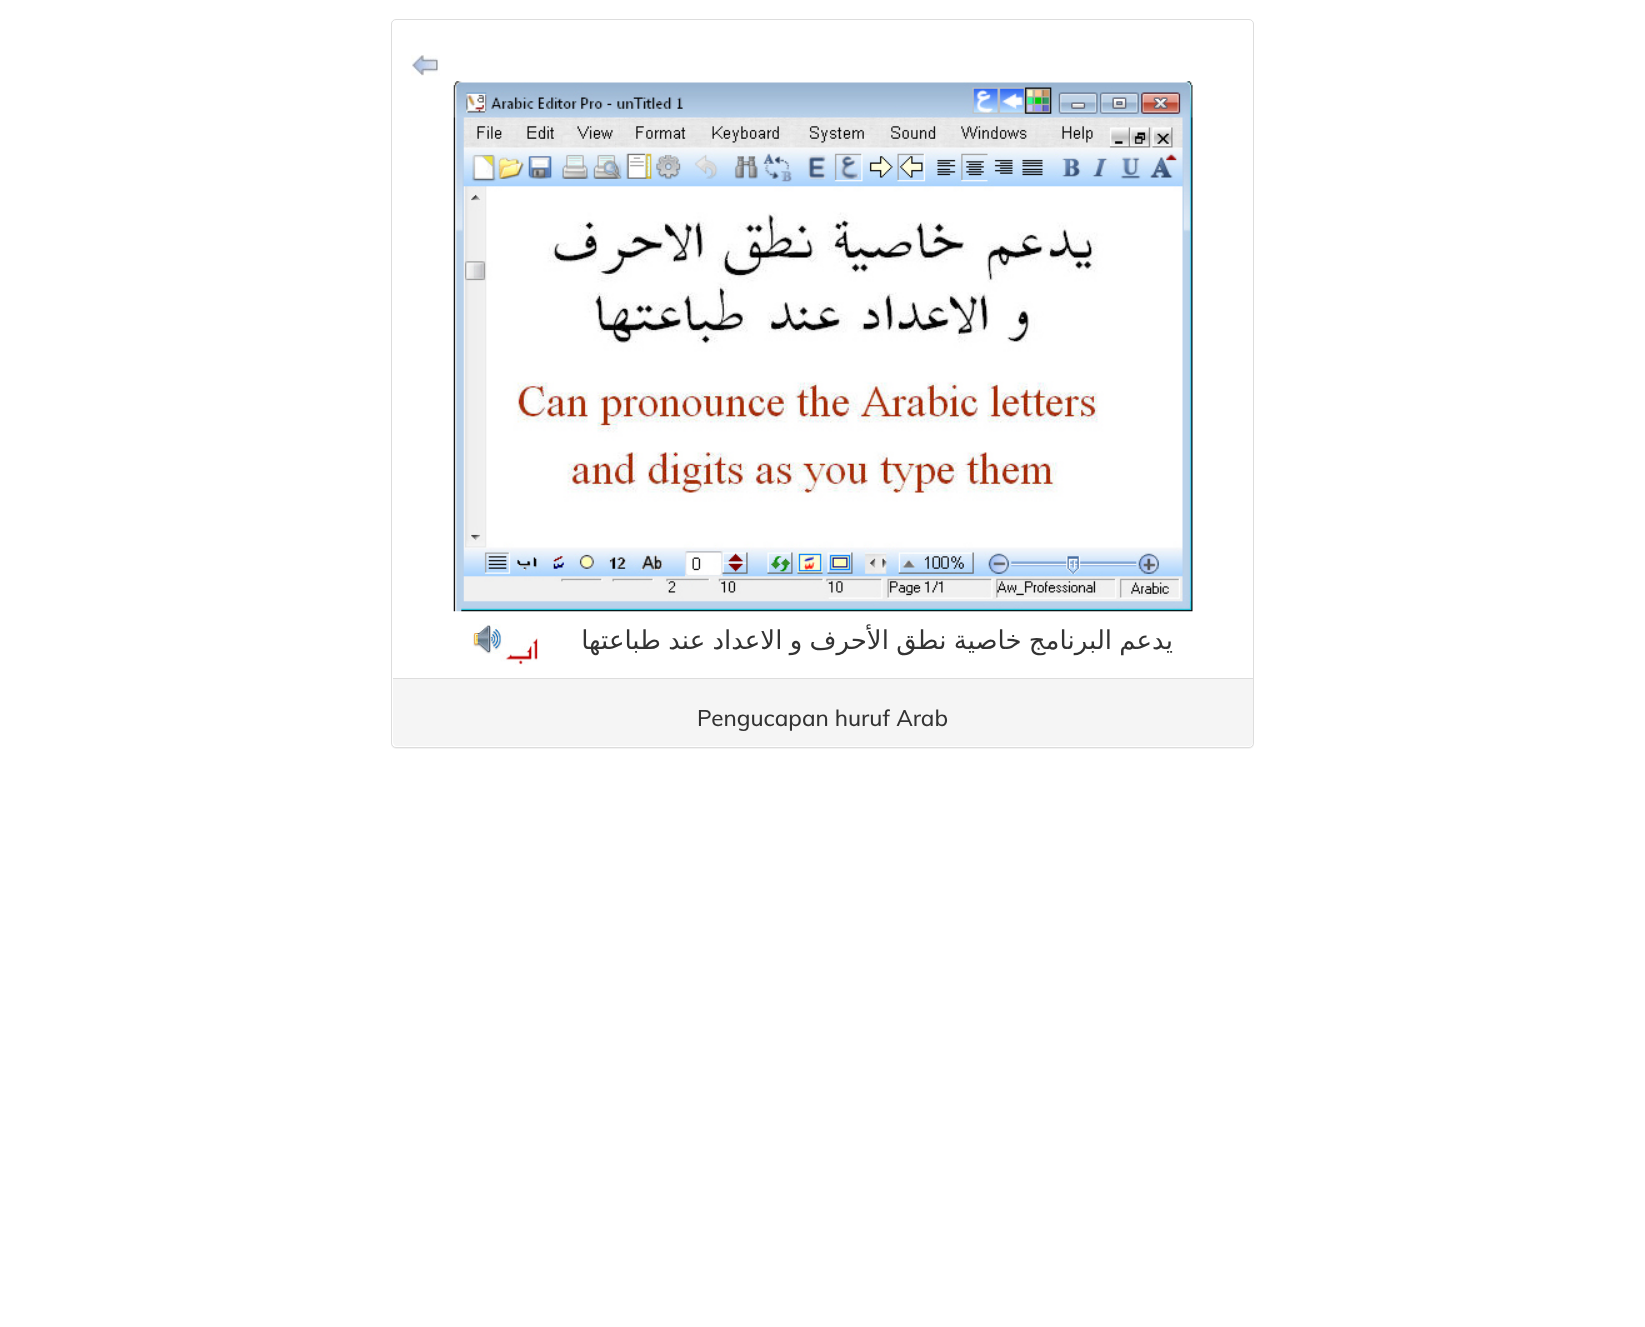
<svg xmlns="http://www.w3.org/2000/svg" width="1645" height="1327">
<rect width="100%" height="100%" fill="#fff"/>
<rect x="391" y="20" width="863" height="729" rx="5" fill="#0000000d" filter="blur(0.5px)"/>
<rect x="391.5" y="19.5" width="862" height="728" rx="4.5" fill="#fff" stroke="#ddd"/>
<image x="411" y="55" width="29" height="21" href="media/1.png"/>
<image x="453" y="81" width="740" height="531" href="media/2.png"/>
<text x="1173" y="649" word-spacing="-1" style="font-family:DejaVu Sans;font-size:26px;direction:rtl;fill:#333">يدعم البرنامج خاصية نطق الأحرف و الاعداد عند طباعتها</text>
<image x="472" y="624" width="67" height="41" href="media/3.png"/>
<path d="M393 678h860v64c0 2-2 4-4 4h-852c-2 0-4-2-4-4z" fill="#f5f5f5"/>
<rect x="393" y="678" width="860" height="1" fill="#ddd"/>
<text x="697" y="726" style="font-family:Mulish;font-size:22.5px;font-weight:500;fill:#333">Pengucapan huruf Arab</text>
</svg>
